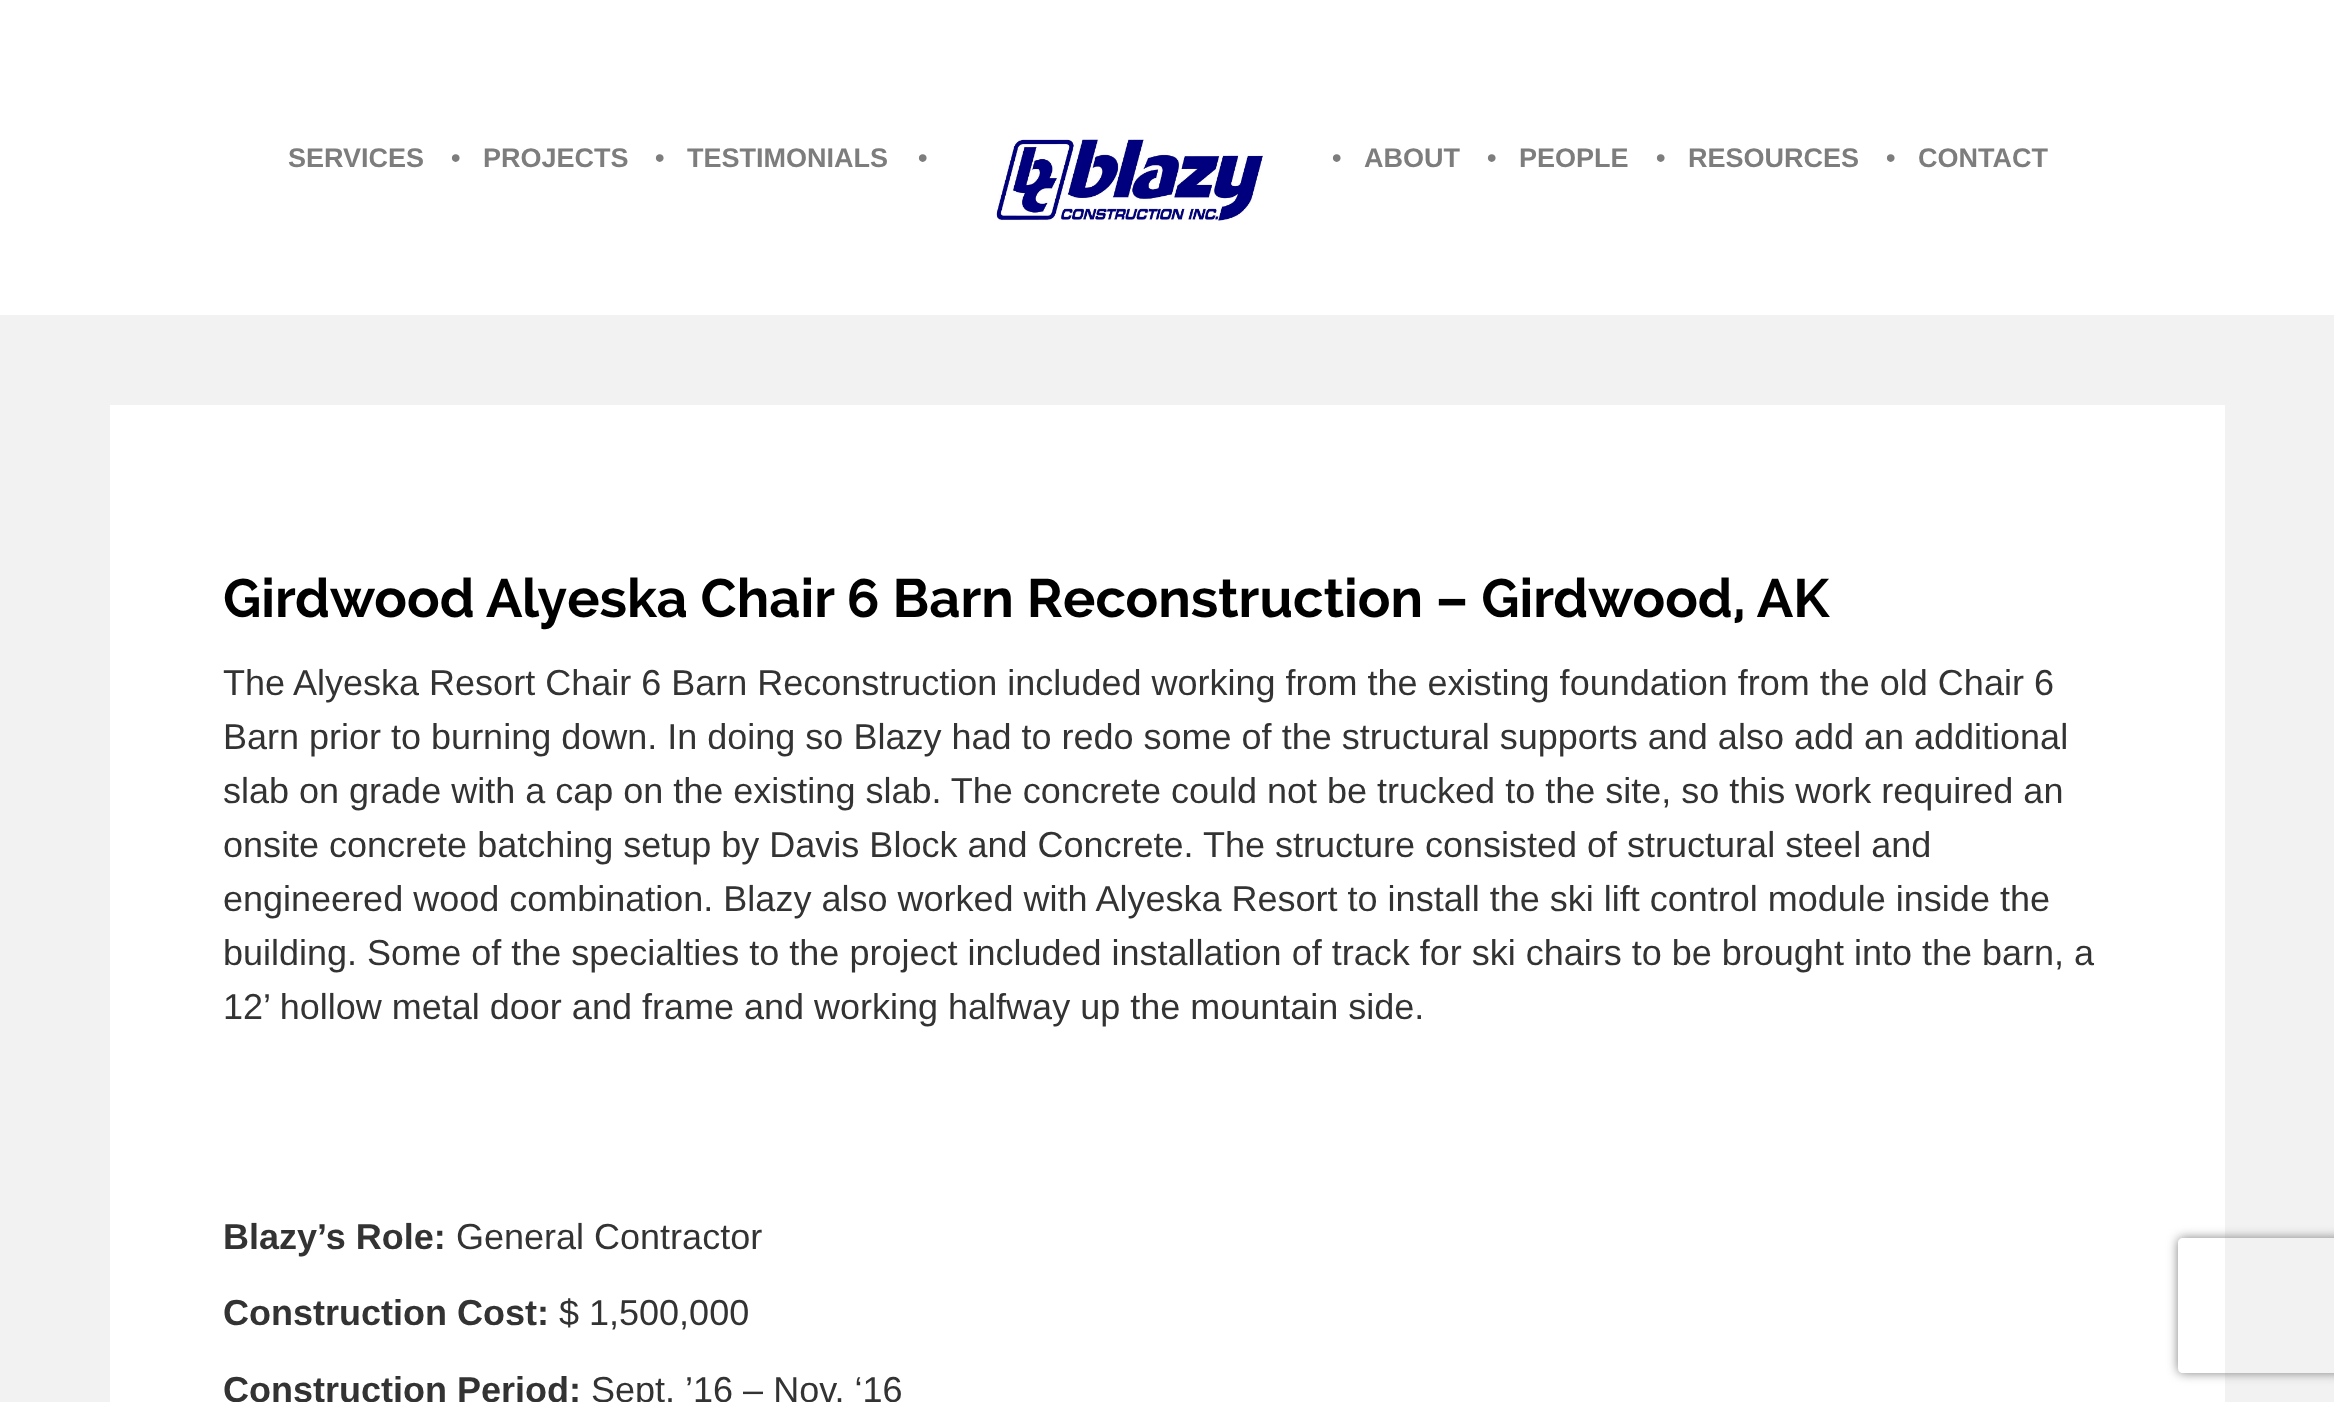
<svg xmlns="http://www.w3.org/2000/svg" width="2334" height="1402">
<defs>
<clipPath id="clip1"><path d="M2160 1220h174v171h-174zm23 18h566c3 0 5 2 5 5v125c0 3-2 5-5 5h-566c-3 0-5-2-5-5v-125c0-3 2-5 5-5z" clip-rule="evenodd"/></clipPath>
</defs>
<rect width="100%" height="100%" fill="#f2f2f2"/>
<rect width="2334" height="315" fill="#fff"/>
<text x="288" y="167" style="font-family:Liberation Sans;font-size:27px;font-weight:bold;fill:#7d7d7d">SERVICES</text>
<text x="451" y="167" style="font-family:Liberation Sans;font-size:27px;font-weight:bold;fill:#7d7d7d">•</text>
<text x="483" y="167" style="font-family:Liberation Sans;font-size:27px;font-weight:bold;fill:#7d7d7d">PROJECTS</text>
<text x="655" y="167" style="font-family:Liberation Sans;font-size:27px;font-weight:bold;fill:#7d7d7d">•</text>
<text x="687" y="167" style="font-family:Liberation Sans;font-size:27px;font-weight:bold;fill:#7d7d7d">TESTIMONIALS</text>
<text x="918" y="167" style="font-family:Liberation Sans;font-size:27px;font-weight:bold;fill:#7d7d7d">•</text>
<image x="996" y="139" width="267" height="82" href="media/1.png"/>
<text x="1332" y="167" style="font-family:Liberation Sans;font-size:27px;font-weight:bold;fill:#7d7d7d">•</text>
<text x="1364" y="167" style="font-family:Liberation Sans;font-size:27px;font-weight:bold;fill:#7d7d7d">ABOUT</text>
<text x="1487" y="167" style="font-family:Liberation Sans;font-size:27px;font-weight:bold;fill:#7d7d7d">•</text>
<text x="1519" y="167" style="font-family:Liberation Sans;font-size:27px;font-weight:bold;fill:#7d7d7d">PEOPLE</text>
<text x="1656" y="167" style="font-family:Liberation Sans;font-size:27px;font-weight:bold;fill:#7d7d7d">•</text>
<text x="1688" y="167" style="font-family:Liberation Sans;font-size:27px;font-weight:bold;fill:#7d7d7d">RESOURCES</text>
<text x="1886" y="167" style="font-family:Liberation Sans;font-size:27px;font-weight:bold;fill:#7d7d7d">•</text>
<text x="1918" y="167" style="font-family:Liberation Sans;font-size:27px;font-weight:bold;fill:#7d7d7d">CONTACT</text>
<rect x="110" y="405" width="2115" height="997" fill="#fff"/>
<text x="223" y="617" style="font-family:Raleway;font-size:54px;font-weight:bold;fill:#000">Girdwood Alyeska Chair 6 Barn Reconstruction – Girdwood, AK</text>
<text x="223" y="695" style="font-family:Liberation Sans;font-size:36px;fill:#333">The Alyeska Resort Chair 6 Barn Reconstruction included working from the existing foundation from the old Chair 6</text>
<text x="223" y="749" style="font-family:Liberation Sans;font-size:36px;fill:#333">Barn prior to burning down. In doing so Blazy had to redo some of the structural supports and also add an additional</text>
<text x="223" y="803" style="font-family:Liberation Sans;font-size:36px;fill:#333">slab on grade with a cap on the existing slab. The concrete could not be trucked to the site, so this work required an</text>
<text x="223" y="857" style="font-family:Liberation Sans;font-size:36px;fill:#333">onsite concrete batching setup by Davis Block and Concrete. The structure consisted of structural steel and</text>
<text x="223" y="911" style="font-family:Liberation Sans;font-size:36px;fill:#333">engineered wood combination. Blazy also worked with Alyeska Resort to install the ski lift control module inside the</text>
<text x="223" y="965" style="font-family:Liberation Sans;font-size:36px;fill:#333">building. Some of the specialties to the project included installation of track for ski chairs to be brought into the barn, a</text>
<text x="223" y="1019" style="font-family:Liberation Sans;font-size:36px;fill:#333">12’ hollow metal door and frame and working halfway up the mountain side.</text>
<text x="223" y="1249" style="font-family:Liberation Sans;font-size:36px;font-weight:bold;fill:#333">Blazy’s Role:</text>
<text x="456" y="1249" style="font-family:Liberation Sans;font-size:36px;fill:#333">General Contractor</text>
<text x="223" y="1325" style="font-family:Liberation Sans;font-size:36px;font-weight:bold;fill:#333">Construction Cost:</text>
<text x="559" y="1325" style="font-family:Liberation Sans;font-size:36px;fill:#333">$ 1,500,000</text>
<text x="223" y="1402" style="font-family:Liberation Sans;font-size:36px;font-weight:bold;fill:#333">Construction Period:</text>
<text x="591" y="1402" style="font-family:Liberation Sans;font-size:36px;fill:#333">Sept. ’16 – Nov. ‘16</text>
<g clip-path="url(#clip1)">
<rect x="2178" y="1238" width="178" height="135" rx="5" fill="#808080" filter="blur(5.5px)"/>
</g>
</svg>
